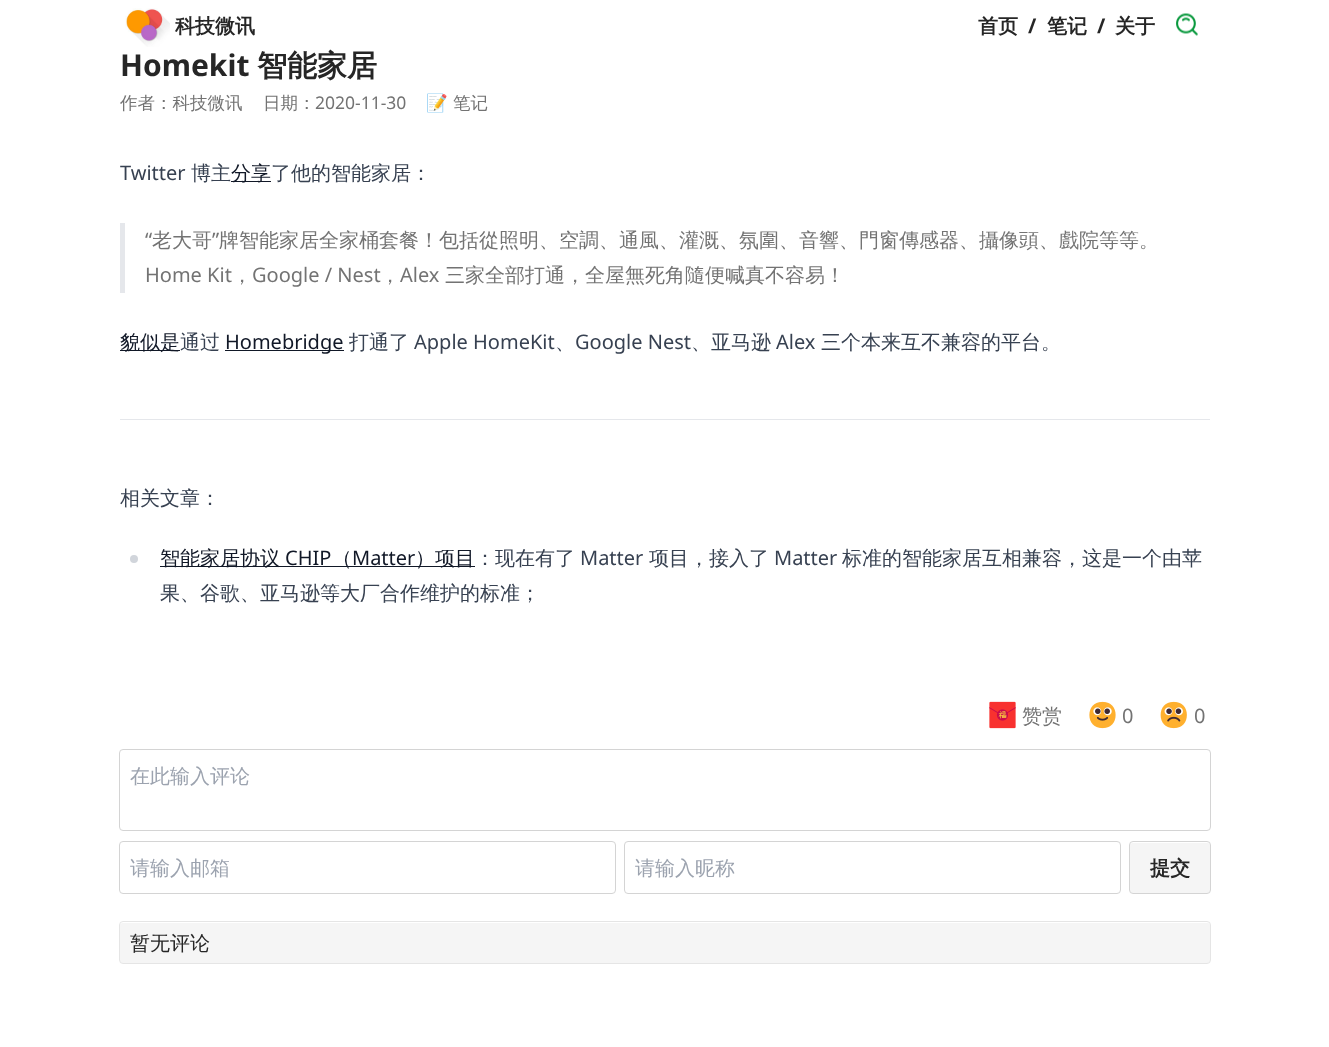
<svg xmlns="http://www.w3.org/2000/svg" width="1329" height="1047">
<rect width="100%" height="100%" fill="#fff"/>
<image x="125" y="8" width="45" height="39" href="media/1.png"/>
<text x="175" y="33" style="font-family:WenQuanYi Zen Hei;font-size:20px;font-weight:bold;fill:#262626">科技微讯</text>
<text x="978" y="33" style="font-family:WenQuanYi Zen Hei;font-size:20px;font-weight:bold;fill:#262626">首页</text>
<text x="1028" y="33" style="font-family:Noto Sans;font-size:20px;font-weight:bold;fill:#262626">/</text>
<text x="1047" y="33" style="font-family:WenQuanYi Zen Hei;font-size:20px;font-weight:bold;fill:#262626">笔记</text>
<text x="1097" y="33" style="font-family:Noto Sans;font-size:20px;font-weight:bold;fill:#262626">/</text>
<text x="1115" y="33" style="font-family:WenQuanYi Zen Hei;font-size:20px;font-weight:bold;fill:#262626">关于</text>
<image x="1176" y="13" width="22" height="23" href="media/2.png"/>
<text x="120" y="76" style="font-family:Noto Sans;font-size:30px;font-weight:bold;fill:#262626">Homekit</text>
<text x="257" y="76" style="font-family:WenQuanYi Zen Hei;font-size:30px;font-weight:bold;fill:#262626">智能家居</text>
<text x="120" y="109" style="font-family:WenQuanYi Zen Hei;font-size:17.5px;font-weight:500;fill:#737373">作者：科技微讯</text>
<text x="263" y="109" style="font-family:WenQuanYi Zen Hei;font-size:17.5px;font-weight:500;fill:#737373">日期：</text>
<text x="315" y="109" style="font-family:Noto Sans;font-size:17.5px;fill:#737373">2020-11-30</text>
<text x="426" y="109" style="font-family:Noto Color Emoji;font-size:17.5px;fill:#737373">📝</text>
<text x="453" y="109" style="font-family:WenQuanYi Zen Hei;font-size:17.5px;font-weight:500;fill:#737373">笔记</text>
<text x="120" y="180" style="font-family:Noto Sans;font-size:20px;fill:#374151">Twitter</text>
<text x="191" y="180" style="font-family:WenQuanYi Zen Hei;font-size:20px;font-weight:500;fill:#374151">博主</text>
<rect x="231" y="181" width="40" height="1" fill="#111827"/>
<text x="231" y="180" style="font-family:WenQuanYi Zen Hei;font-size:20px;font-weight:500;fill:#111827">分享</text>
<text x="271" y="180" style="font-family:WenQuanYi Zen Hei;font-size:20px;font-weight:500;fill:#374151">了他的智能家居：</text>
<rect x="120" y="223" width="5" height="70" fill="#e5e7eb"/>
<text x="145" y="247" style="font-family:Noto Sans;font-size:20px;fill:#737373">“</text>
<text x="152" y="247" style="font-family:WenQuanYi Zen Hei;font-size:20px;font-weight:500;fill:#737373">老大哥</text>
<text x="212" y="247" style="font-family:Noto Sans;font-size:20px;fill:#737373">”</text>
<text x="219" y="247" style="font-family:WenQuanYi Zen Hei;font-size:20px;font-weight:500;fill:#737373">牌智能家居全家桶套餐！包括從照明、空調、通風、灌溉、氛圍、音響、門窗傳感器、攝像頭、戲院等等。</text>
<text x="145" y="282" style="font-family:Noto Sans;font-size:20px;fill:#737373">Home Kit</text>
<text x="232" y="282" style="font-family:WenQuanYi Zen Hei;font-size:20px;font-weight:500;fill:#737373">，</text>
<text x="252" y="282" style="font-family:Noto Sans;font-size:20px;fill:#737373">Google / Nest</text>
<text x="380" y="282" style="font-family:WenQuanYi Zen Hei;font-size:20px;font-weight:500;fill:#737373">，</text>
<text x="400" y="282" style="font-family:Noto Sans;font-size:20px;fill:#737373">Alex</text>
<text x="445" y="282" style="font-family:WenQuanYi Zen Hei;font-size:20px;font-weight:500;fill:#737373">三家全部打通，全屋無死角隨便喊真不容易！</text>
<rect x="120" y="350" width="60" height="1" fill="#111827"/>
<text x="120" y="349" style="font-family:WenQuanYi Zen Hei;font-size:20px;font-weight:500;fill:#111827">貌似是</text>
<text x="180" y="349" style="font-family:WenQuanYi Zen Hei;font-size:20px;font-weight:500;fill:#374151">通过</text>
<rect x="225" y="350" width="119" height="1" fill="#111827"/>
<text x="225" y="349" style="font-family:Noto Sans;font-size:20px;fill:#111827">Homebridge</text>
<text x="349" y="349" style="font-family:WenQuanYi Zen Hei;font-size:20px;font-weight:500;fill:#374151">打通了</text>
<text x="414" y="349" style="font-family:Noto Sans;font-size:20px;fill:#374151">Apple HomeKit</text>
<text x="555" y="349" style="font-family:WenQuanYi Zen Hei;font-size:20px;font-weight:500;fill:#374151">、</text>
<text x="575" y="349" style="font-family:Noto Sans;font-size:20px;fill:#374151">Google Nest</text>
<text x="691" y="349" style="font-family:WenQuanYi Zen Hei;font-size:20px;font-weight:500;fill:#374151">、亚马逊</text>
<text x="776" y="349" style="font-family:Noto Sans;font-size:20px;fill:#374151">Alex</text>
<text x="821" y="349" style="font-family:WenQuanYi Zen Hei;font-size:20px;font-weight:500;fill:#374151">三个本来互不兼容的平台。</text>
<rect x="120" y="419" width="1090" height="1" fill="#e5e7eb"/>
<text x="120" y="505" style="font-family:WenQuanYi Zen Hei;font-size:20px;font-weight:500;fill:#374151">相关文章：</text>
<circle cx="134" cy="559" r="4" fill="#d1d5db"/>
<rect x="160" y="566" width="315" height="1" fill="#111827"/>
<text x="160" y="565" style="font-family:WenQuanYi Zen Hei;font-size:20px;font-weight:500;fill:#111827">智能家居协议</text>
<text x="285" y="565" style="font-family:Noto Sans;font-size:20px;fill:#111827">CHIP</text>
<text x="332" y="565" style="font-family:WenQuanYi Zen Hei;font-size:20px;font-weight:500;fill:#111827">（</text>
<text x="352" y="565" style="font-family:Noto Sans;font-size:20px;fill:#111827">Matter</text>
<text x="415" y="565" style="font-family:WenQuanYi Zen Hei;font-size:20px;font-weight:500;fill:#111827">）项目</text>
<text x="475" y="565" style="font-family:WenQuanYi Zen Hei;font-size:20px;font-weight:500;fill:#374151">：现在有了</text>
<text x="580" y="565" style="font-family:Noto Sans;font-size:20px;fill:#374151">Matter</text>
<text x="649" y="565" style="font-family:WenQuanYi Zen Hei;font-size:20px;font-weight:500;fill:#374151">项目，接入了</text>
<text x="774" y="565" style="font-family:Noto Sans;font-size:20px;fill:#374151">Matter</text>
<text x="842" y="565" style="font-family:WenQuanYi Zen Hei;font-size:20px;font-weight:500;fill:#374151">标准的智能家居互相兼容，这是一个由苹</text>
<text x="160" y="600" style="font-family:WenQuanYi Zen Hei;font-size:20px;font-weight:500;fill:#374151">果、谷歌、亚马逊等大厂合作维护的标准；</text>
<image x="989" y="701" width="27" height="28" href="media/3.png"/>
<text x="1022" y="723" style="font-family:WenQuanYi Zen Hei;font-size:20px;font-weight:500;fill:#737373">赞赏</text>
<image x="1089" y="701" width="27" height="28" href="media/4.png"/>
<text x="1122" y="723" style="font-family:Noto Sans;font-size:20px;fill:#737373">0</text>
<image x="1160" y="701" width="27" height="28" href="media/5.png"/>
<text x="1194" y="723" style="font-family:Noto Sans;font-size:20px;fill:#737373">0</text>
<rect x="119.5" y="749.5" width="1091" height="81" rx="3.5" fill="none" stroke="#d4d4d4"/>
<text x="130" y="783" style="font-family:WenQuanYi Zen Hei;font-size:20px;font-weight:500;fill:#9ca3af">在此输入评论</text>
<rect x="119.5" y="841.5" width="496" height="52" rx="3.5" fill="none" stroke="#d4d4d4"/>
<text x="130" y="875" style="font-family:WenQuanYi Zen Hei;font-size:20px;font-weight:500;fill:#9ca3af">请输入邮箱</text>
<rect x="624.5" y="841.5" width="496" height="52" rx="3.5" fill="none" stroke="#d4d4d4"/>
<text x="635" y="875" style="font-family:WenQuanYi Zen Hei;font-size:20px;font-weight:500;fill:#9ca3af">请输入昵称</text>
<rect x="1130" y="843" width="80" height="50" rx="2.5" fill="#f5f5f5"/>
<rect x="1129.5" y="841.5" width="81" height="52" rx="3.5" fill="none" stroke="#d4d4d4"/>
<text x="1150" y="875" style="font-family:WenQuanYi Zen Hei;font-size:20px;font-weight:bold;fill:#262626">提交</text>
<rect x="120" y="923" width="1090" height="40" rx="2.5" fill="#f5f5f5"/>
<rect x="119.5" y="921.5" width="1091" height="42" rx="3.5" fill="none" stroke="#e5e5e5"/>
<text x="130" y="950" style="font-family:WenQuanYi Zen Hei;font-size:20px;font-weight:500;fill:#262626">暂无评论</text>
</svg>
